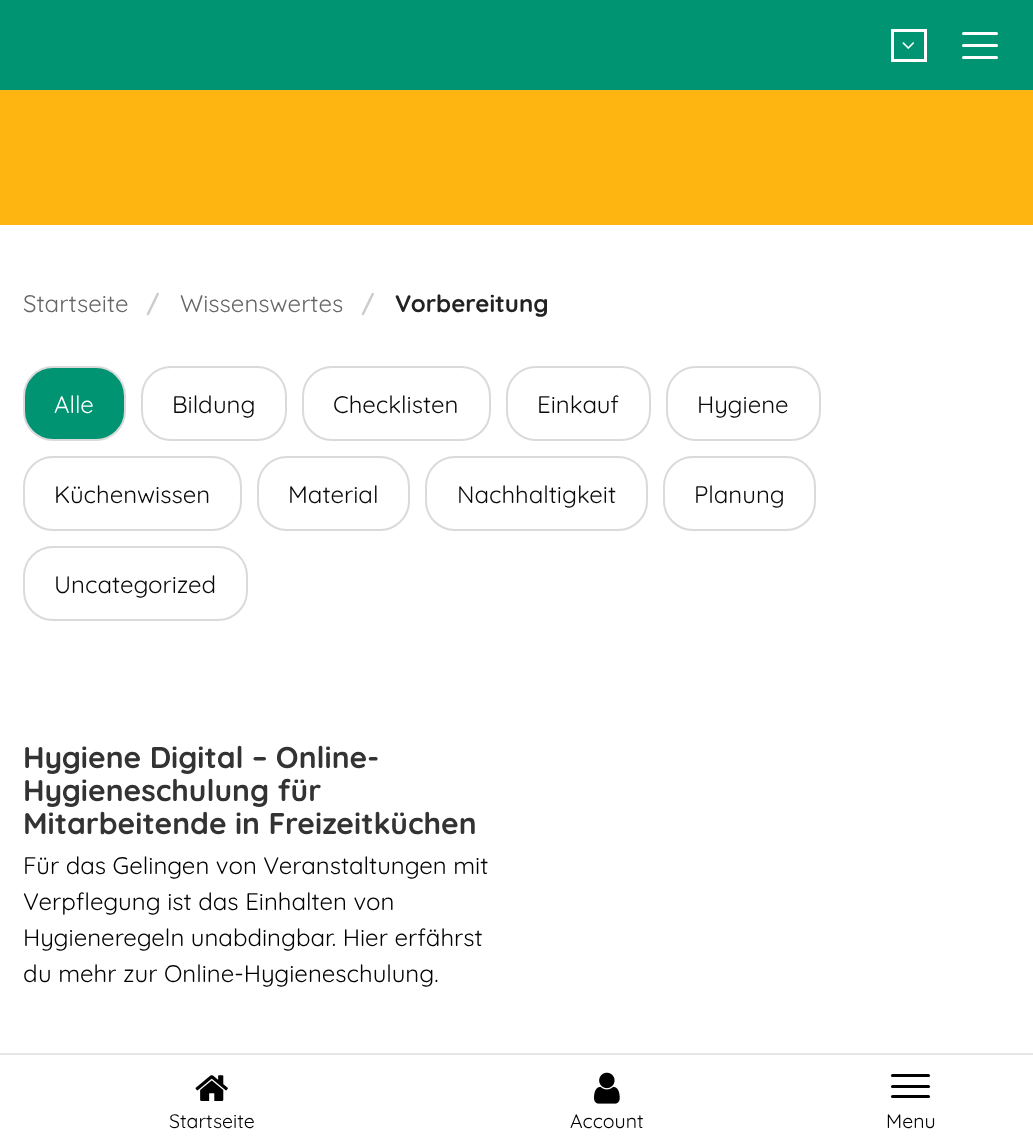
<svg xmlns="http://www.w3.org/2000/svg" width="1033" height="1143">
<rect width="100%" height="100%" fill="#fff"/>
<rect width="1033" height="90" fill="#009473"/>
<rect x="892.5" y="30.5" width="33" height="30" fill="none" stroke="#fff" stroke-width="3"/>
<image x="902" y="42" width="12" height="7" href="media/1.png"/>
<rect x="962" y="32" width="36" height="3" rx="1.5" fill="#fff"/>
<rect x="962" y="44" width="36" height="3" rx="1.5" fill="#fff"/>
<rect x="962" y="56" width="36" height="3" rx="1.5" fill="#fff"/>
<rect y="90" width="1033" height="135" fill="#ffb511"/>
<text x="23" y="312" style="font-family:Quicksand;font-size:24px;fill:#666">Startseite</text>
<text x="146" y="312" style="font-family:Quicksand;font-size:24px;font-weight:bold;fill:#ccc">/</text>
<text x="180" y="312" style="font-family:Quicksand;font-size:24px;fill:#666">Wissenswertes</text>
<text x="361" y="312" style="font-family:Quicksand;font-size:24px;font-weight:bold;fill:#ccc">/</text>
<text x="395" y="312" style="font-family:Quicksand;font-size:24px;font-weight:bold;fill:#222">Vorbereitung</text>
<rect x="24" y="367" width="101" height="73" rx="29" fill="#009473" stroke="#dadada" stroke-width="2"/>
<text x="54" y="413" style="font-family:Quicksand;font-size:24px;fill:#fff">Alle</text>
<rect x="142" y="367" width="144" height="73" rx="29" fill="none" stroke="#dadada" stroke-width="2"/>
<text x="172" y="413" style="font-family:Quicksand;font-size:24px;fill:#090909">Bildung</text>
<rect x="303" y="367" width="187" height="73" rx="29" fill="none" stroke="#dadada" stroke-width="2"/>
<text x="333" y="413" style="font-family:Quicksand;font-size:24px;fill:#090909">Checklisten</text>
<rect x="507" y="367" width="143" height="73" rx="29" fill="none" stroke="#dadada" stroke-width="2"/>
<text x="537" y="413" style="font-family:Quicksand;font-size:24px;fill:#090909">Einkauf</text>
<rect x="667" y="367" width="153" height="73" rx="29" fill="none" stroke="#dadada" stroke-width="2"/>
<text x="697" y="413" style="font-family:Quicksand;font-size:24px;fill:#090909">Hygiene</text>
<rect x="24" y="457" width="217" height="73" rx="29" fill="none" stroke="#dadada" stroke-width="2"/>
<text x="54" y="503" style="font-family:Quicksand;font-size:24px;fill:#090909">Küchenwissen</text>
<rect x="258" y="457" width="151" height="73" rx="29" fill="none" stroke="#dadada" stroke-width="2"/>
<text x="288" y="503" style="font-family:Quicksand;font-size:24px;fill:#090909">Material</text>
<rect x="426" y="457" width="221" height="73" rx="29" fill="none" stroke="#dadada" stroke-width="2"/>
<text x="457" y="503" style="font-family:Quicksand;font-size:24px;fill:#090909">Nachhaltigkeit</text>
<rect x="664" y="457" width="151" height="73" rx="29" fill="none" stroke="#dadada" stroke-width="2"/>
<text x="694" y="503" style="font-family:Quicksand;font-size:24px;fill:#090909">Planung</text>
<rect x="24" y="547" width="223" height="73" rx="29" fill="none" stroke="#dadada" stroke-width="2"/>
<text x="54" y="593" style="font-family:Quicksand;font-size:24px;fill:#090909">Uncategorized</text>
<text x="23" y="768" style="font-family:Quicksand;font-size:30px;font-weight:bold;fill:#333">Hygiene Digital – Online-</text>
<text x="23" y="801" style="font-family:Quicksand;font-size:30px;font-weight:bold;fill:#333">Hygieneschulung für</text>
<text x="23" y="834" style="font-family:Quicksand;font-size:30px;font-weight:bold;fill:#333">Mitarbeitende in Freizeitküchen</text>
<text x="23" y="874" style="font-family:Quicksand;font-size:24px;fill:#000">Für das Gelingen von Veranstaltungen mit</text>
<text x="23" y="910" style="font-family:Quicksand;font-size:24px;fill:#000">Verpflegung ist das Einhalten von</text>
<text x="23" y="946" style="font-family:Quicksand;font-size:24px;fill:#000">Hygieneregeln unabdingbar. Hier erfährst</text>
<text x="23" y="982" style="font-family:Quicksand;font-size:24px;fill:#000">du mehr zur Online-Hygieneschulung.</text>
<rect y="1053" width="1033" height="2" fill="#e6e6e6"/>
<image x="195" y="1075" width="33" height="26" href="media/2.png"/>
<text x="169" y="1128" style="font-family:Quicksand;font-size:19.5px;fill:#000">Startseite</text>
<image x="594" y="1072" width="26" height="32" href="media/3.png"/>
<text x="570" y="1128" style="font-family:Quicksand;font-size:19.5px;fill:#000">Account</text>
<rect x="891" y="1074" width="39" height="3" rx="1.5" fill="#000"/>
<rect x="891" y="1085" width="39" height="3" rx="1.5" fill="#000"/>
<rect x="891" y="1095" width="39" height="3" rx="1.5" fill="#000"/>
<text x="886" y="1128" style="font-family:Quicksand;font-size:19.5px;fill:#000">Menu</text>
</svg>
